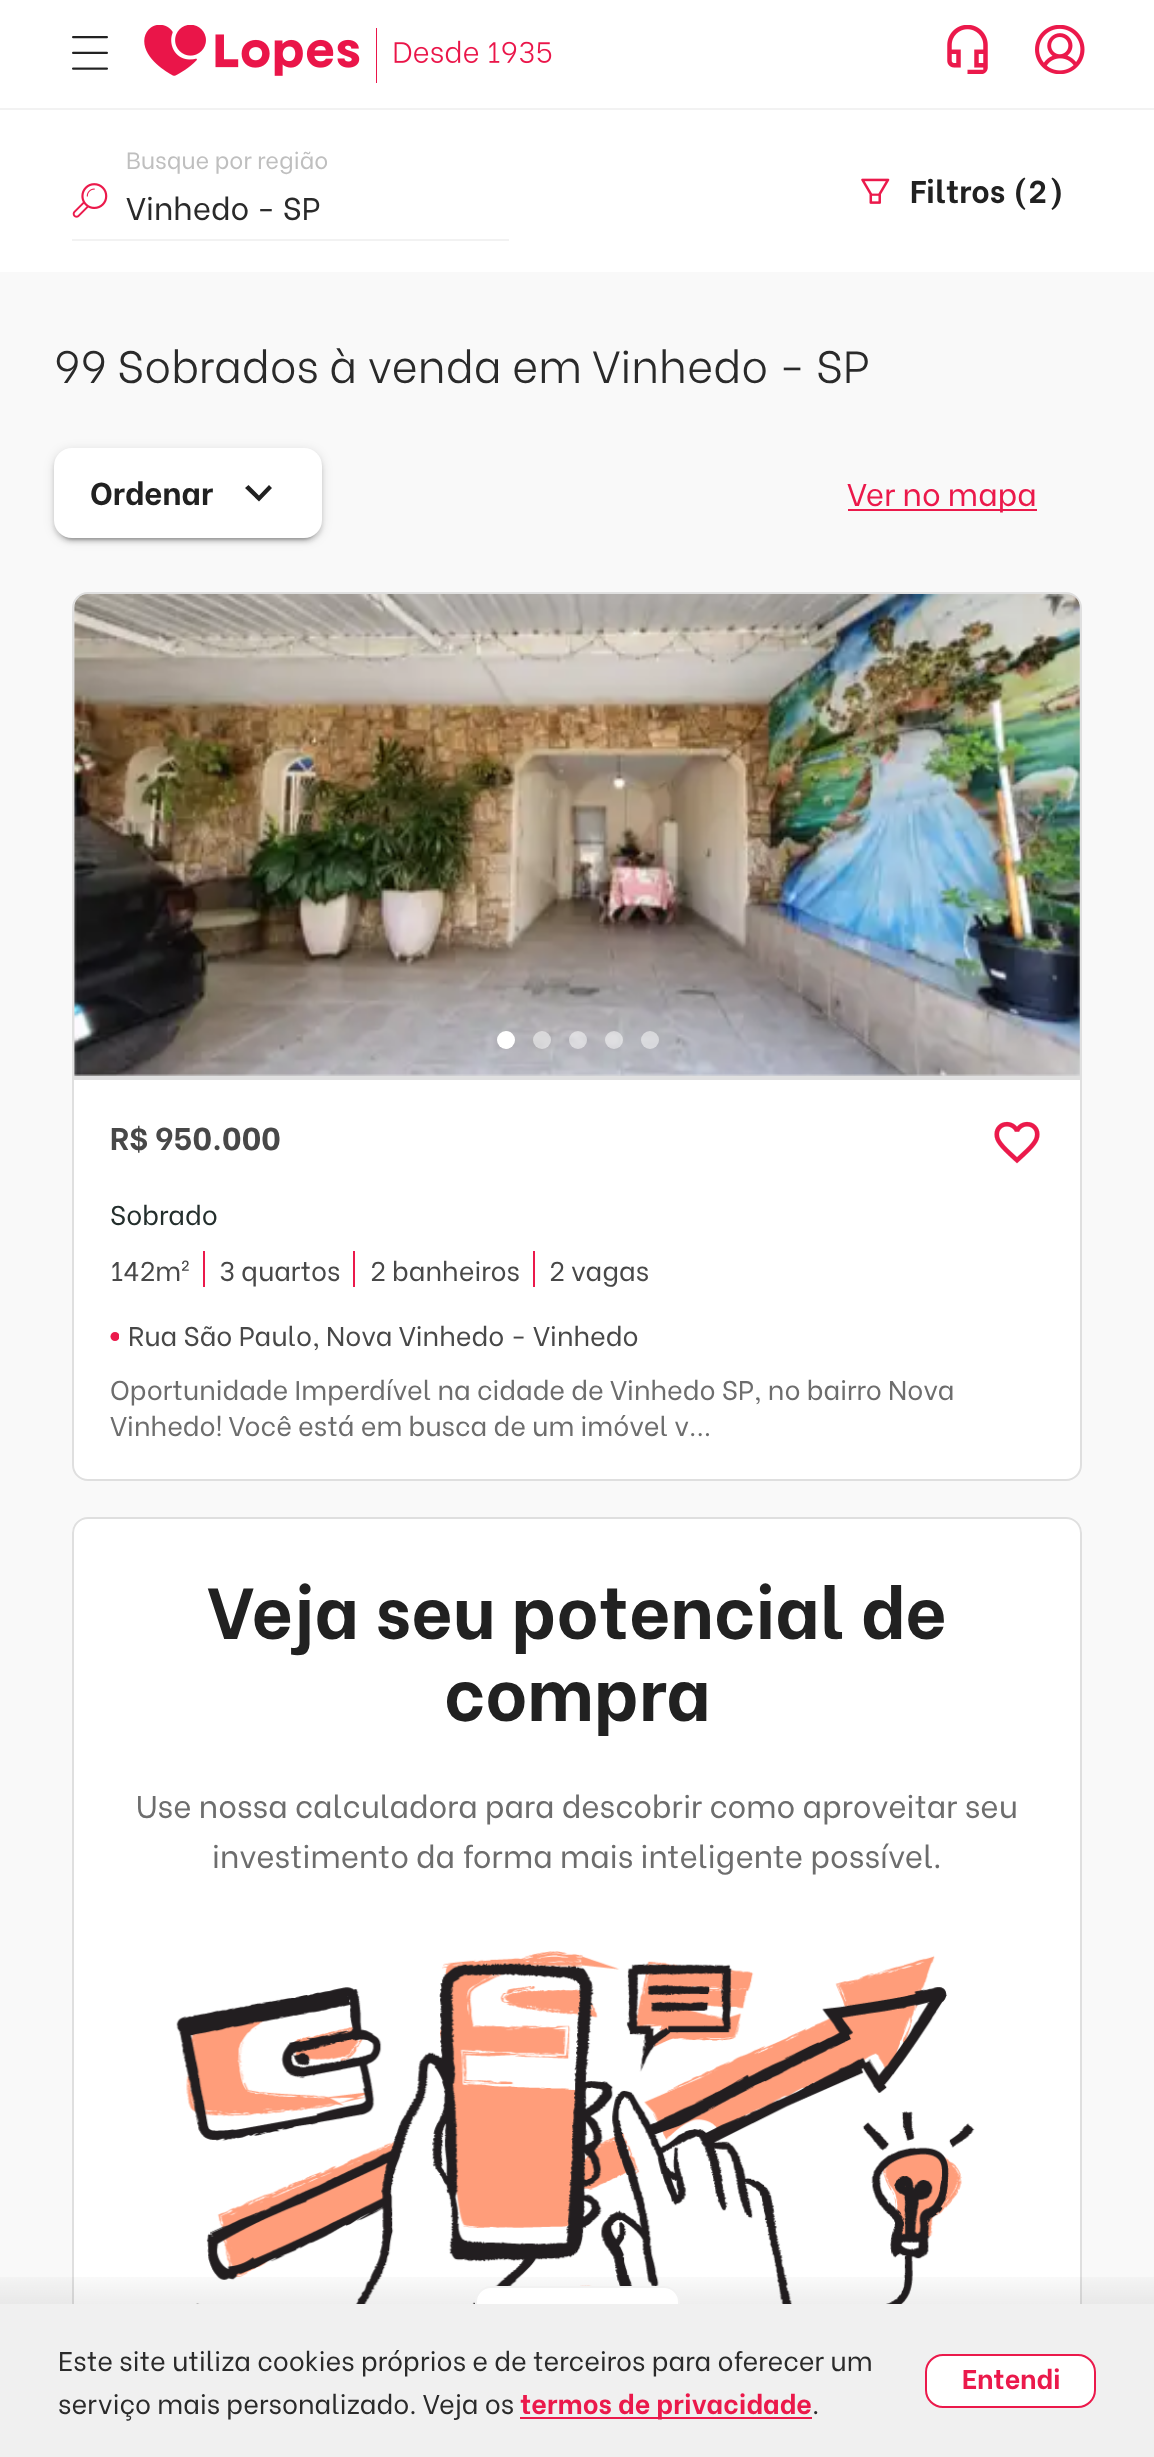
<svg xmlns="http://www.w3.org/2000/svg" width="1154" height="2457">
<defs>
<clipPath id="clip1"><rect x="110" y="1332" width="9" height="9"/></clipPath>
<linearGradient id="g1" gradientUnits="userSpaceOnUse" x1="577" y1="2210" x2="577" y2="2457"><stop offset="0.22" stop-color="#000" stop-opacity="0"/><stop offset="1" stop-color="#000" stop-opacity="0.32"/></linearGradient>
</defs>
<rect width="100%" height="100%" fill="#fff"/>
<rect y="108" width="1154" height="2" fill="#f2f2f2"/>
<image x="72" y="36" width="36" height="34" href="media/1.png"/>
<image x="144" y="25" width="408" height="58" href="media/2.png"/>
<image x="947" y="25" width="41" height="49" href="media/3.png"/>
<image x="1035" y="25" width="50" height="49" href="media/4.png"/>
<image x="72" y="183" width="36" height="35" href="media/5.png"/>
<text x="126" y="169" style="font-family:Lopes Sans;font-size:23.6px;fill:#bfbfbf">Busque por região</text>
<text x="126" y="220" style="font-family:Lopes Sans;font-size:31.5px;fill:#2a2a2a">Vinhedo - SP</text>
<rect x="72" y="239" width="437" height="2" fill="#f2f2f2"/>
<image x="861" y="178" width="29" height="26" href="media/6.png"/>
<text x="910" y="203" style="font-family:Lopes Sans;font-size:31.5px;font-weight:bold;fill:#212121">Filtros (2)</text>
<rect y="272" width="1154" height="2032" fill="#f9f9f9"/>
<text x="54" y="383" style="font-family:Lopes Sans;font-size:45px;font-weight:300;fill:#2a2a2a">99 Sobrados à venda em Vinhedo - SP</text>
<rect x="54" y="450" width="268" height="90" rx="18" fill="#0000001f" filter="blur(5.5px)"/>
<rect x="54" y="452" width="268" height="90" rx="18" fill="#00000024" filter="blur(2px)"/>
<rect x="59" y="459" width="258" height="81" rx="14" fill="#00000033" filter="blur(1px)"/>
<rect x="54" y="448" width="268" height="90" rx="18" fill="#fff"/>
<text x="90" y="505" style="font-family:Lopes Sans;font-size:31.5px;font-weight:bold;fill:#212121">Ordenar</text>
<path d="M269 485l3 3l-13 13.5l-14-13.5l3.5-3l10.5 10.5z" fill="#212121"/>
<rect x="848" y="509" width="189" height="2" fill="#eb194b"/>
<text x="847" y="506" style="font-family:Lopes Sans;font-size:31.5px;fill:#eb194b">Ver no mapa</text>
<rect x="73" y="593" width="1008" height="887" rx="15" fill="#fff" stroke="#dfdfdf" stroke-width="2"/>
<path d="M88 594h978c7.5 0 14 6.5 14 14v472h-1006v-472c0-7.5 6.5-14 14-14z" fill="#dfdfdf"/>
<path d="M88 594h978c7.5 0 14 6.5 14 14v468h-1006v-468c0-7.5 6.5-14 14-14z" fill="#dfdfdf"/>
<image x="74" y="594" width="1006" height="482" href="media/7.png"/>
<circle cx="506" cy="1040" r="9" fill="#fff"/>
<circle cx="542" cy="1040" r="9" fill="#ffffff80"/>
<circle cx="578" cy="1040" r="9" fill="#ffffff80"/>
<circle cx="614" cy="1040" r="9" fill="#ffffff80"/>
<circle cx="650" cy="1040" r="9" fill="#ffffff80"/>
<text x="110" y="1150" style="font-family:Lopes Sans;font-size:31.5px;font-weight:bold;fill:#484848">R$ 950.000</text>
<image x="994" y="1121" width="46" height="43" href="media/8.png"/>
<text x="110" y="1225" style="font-family:Lopes Sans;font-size:27px;fill:#242f2d">Sobrado</text>
<rect x="203" y="1251" width="2" height="36" fill="#eb194b"/>
<text x="110" y="1281" style="font-family:Lopes Sans;font-size:27px;fill:#484848">142m²</text>
<rect x="353" y="1251" width="2" height="36" fill="#eb194b"/>
<text x="219" y="1281" style="font-family:Lopes Sans;font-size:27px;fill:#484848">3 quartos</text>
<rect x="533" y="1251" width="2" height="36" fill="#eb194b"/>
<text x="370" y="1281" style="font-family:Lopes Sans;font-size:27px;fill:#484848">2 banheiros</text>
<text x="549" y="1281" style="font-family:Lopes Sans;font-size:27px;fill:#484848">2 vagas</text>
<g clip-path="url(#clip1)">
<circle cx="115" cy="1336.5" r="4.5" fill="#eb194b"/>
</g>
<text x="128" y="1346" style="font-family:Lopes Sans;font-size:27px;fill:#484848">Rua São Paulo, Nova Vinhedo - Vinhedo</text>
<text x="110" y="1400" style="font-family:Lopes Sans;font-size:27px;fill:#6d6d6d">Oportunidade Imperdível na cidade de Vinhedo SP, no bairro Nova</text>
<text x="110" y="1436" style="font-family:Lopes Sans;font-size:27px;fill:#6d6d6d">Vinhedo! Você está em busca de um imóvel v...</text>
<path d="M88 1517h978c9 0 16 7 16 16v924h-1010v-924c0-9 7-16 16-16z" fill="#fff"/>
<rect x="73" y="1518" width="1008" height="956" rx="15" fill="none" stroke="#dfdfdf" stroke-width="2"/>
<text x="207" y="1639" style="font-family:Lopes Sans;font-size:72px;font-weight:bold;fill:#212121">Veja seu potencial de</text>
<text x="444" y="1721" style="font-family:Lopes Sans;font-size:72px;font-weight:bold;fill:#212121">compra</text>
<text x="136" y="1818" style="font-family:Lopes Sans;font-size:31.5px;fill:#6d6d6d">Use nossa calculadora para descobrir como aproveitar seu</text>
<text x="212" y="1868" style="font-family:Lopes Sans;font-size:31.5px;fill:#6d6d6d">investimento da forma mais inteligente possível.</text>
<image x="176" y="1951" width="799" height="353" href="media/9.png"/>
<rect y="2277" width="1154" height="27" fill="url(#g1)"/>
<rect x="476" y="2287" width="203" height="93" rx="15" fill="#fff" stroke="#f2f2f2" stroke-width="2"/>
<rect y="2304" width="1154" height="153" fill="#f0f0f0"/>
<text x="58" y="2371" style="font-family:Lopes Sans;font-size:27px;fill:#2a2a2a">Este site utiliza cookies próprios e de terceiros para oferecer um</text>
<text x="58" y="2414" style="font-family:Lopes Sans;font-size:27px;fill:#2a2a2a">serviço mais personalizado. Veja os</text>
<rect x="520" y="2417" width="292" height="2" fill="#eb194b"/>
<text x="520" y="2414" style="font-family:Lopes Sans;font-size:27px;font-weight:bold;fill:#eb194b">termos de privacidade</text>
<text x="812" y="2414" style="font-family:Lopes Sans;font-size:27px;fill:#2a2a2a">.</text>
<rect x="926" y="2355" width="169" height="52" rx="17" fill="#fff" stroke="#eb194b" stroke-width="2"/>
<text x="962" y="2389" style="font-family:Lopes Sans;font-size:27px;font-weight:bold;fill:#eb194b">Entendi</text>
</svg>
